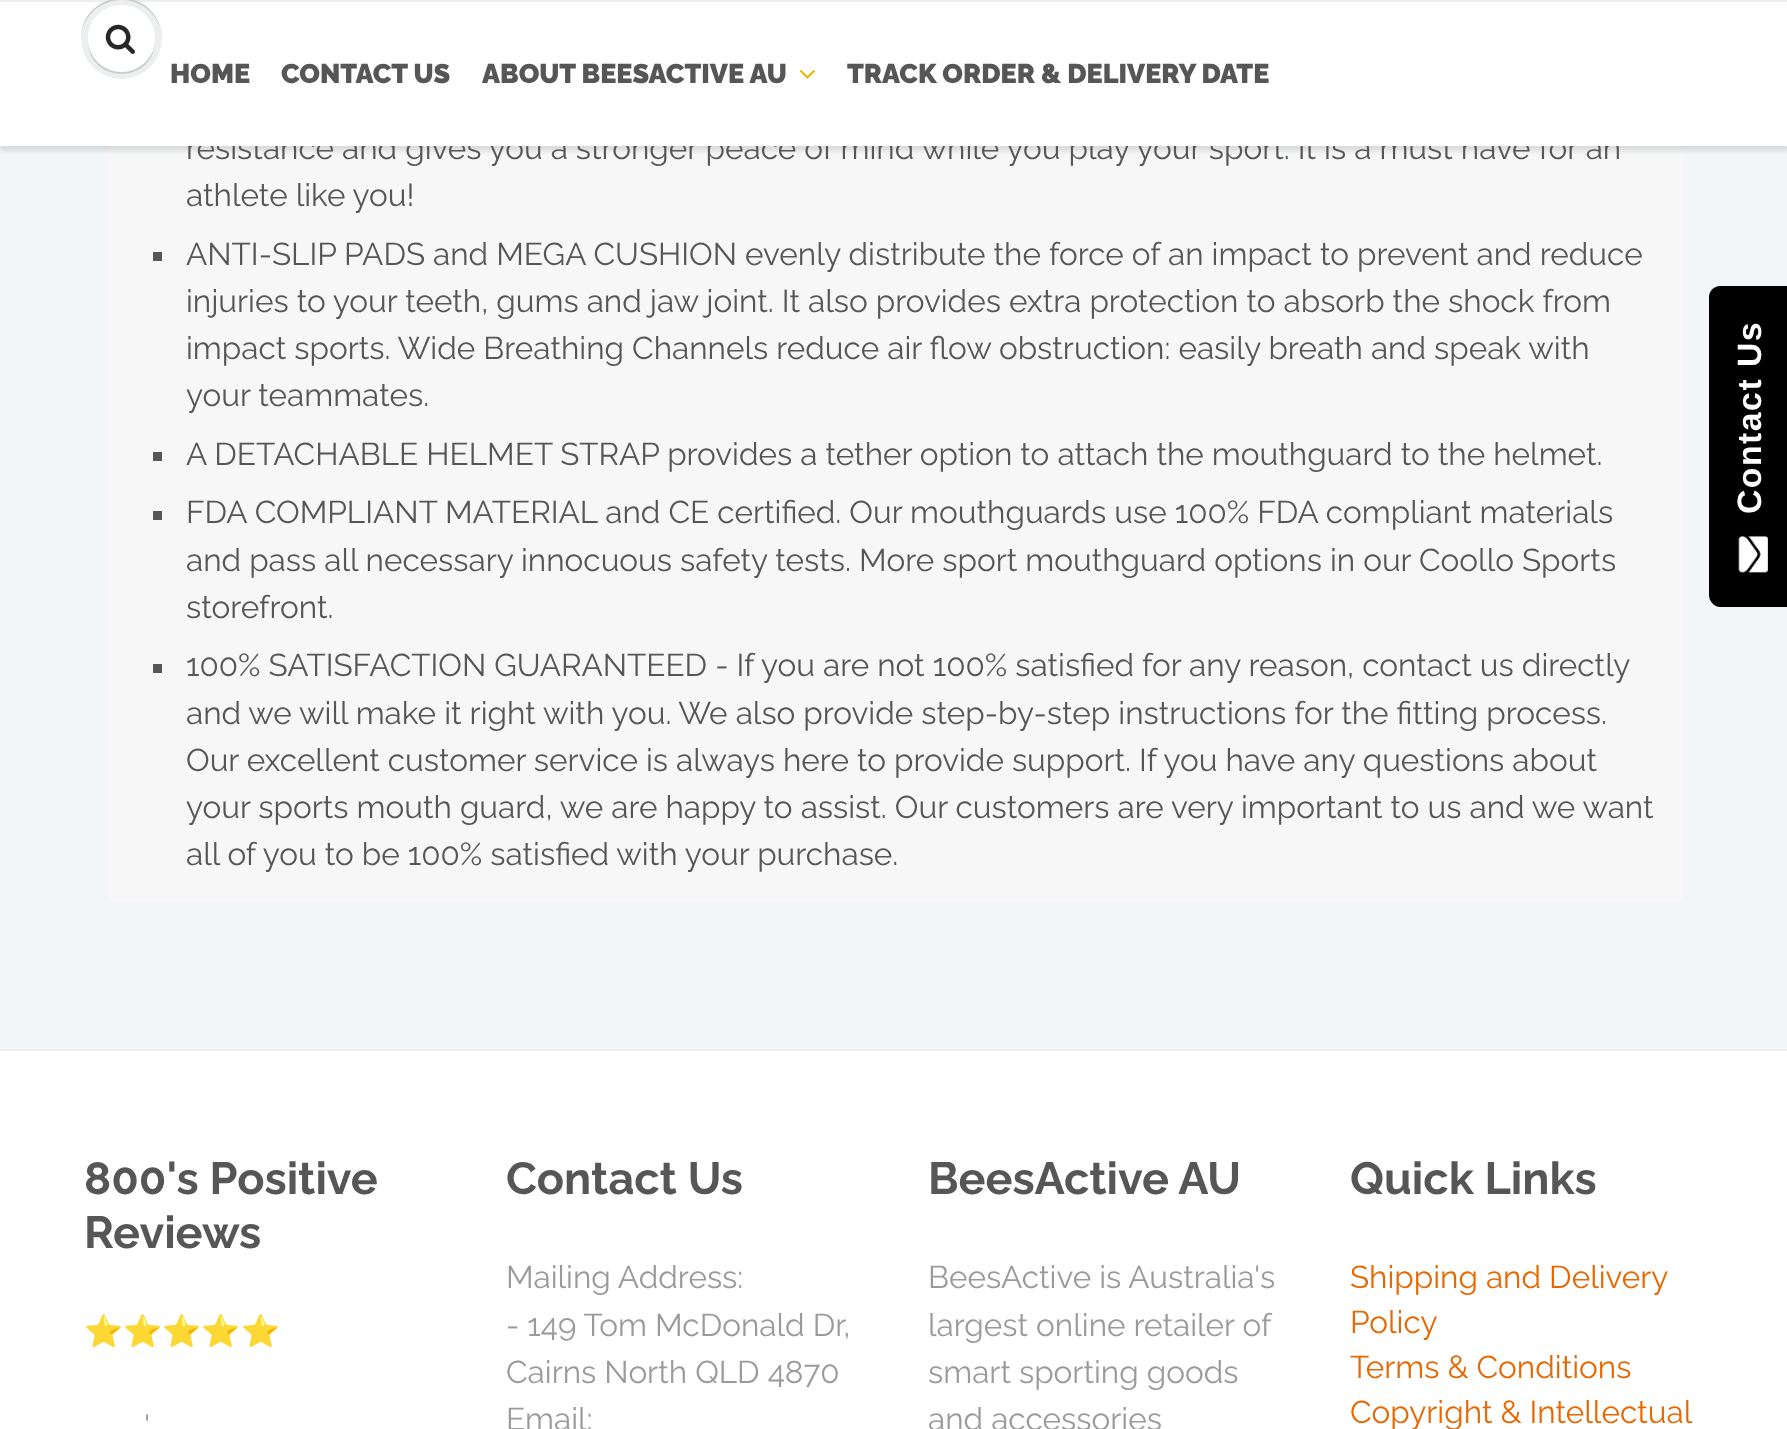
<svg xmlns="http://www.w3.org/2000/svg" width="1787" height="1429">
<rect width="100%" height="100%" fill="#fff"/>
<rect y="146" width="1787" height="903" fill="#f3f6f6"/>
<path d="M108-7h1568c4 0 7 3 7 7v895c0 4-3 7-7 7h-1561c-4 0-7-3-7-7z" fill="#f7f7f7"/>
<rect y="5" width="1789" height="146" fill="#0b191c1f" filter="blur(2px)"/>
<text x="186" y="159" style="font-family:Raleway;font-size:31.5px;fill:#565656">resistance and gives you a stronger peace of mind while you play your sport. It is a must have for an</text>
<rect y="2" width="1787" height="144" fill="#fff"/>
<rect width="1787" height="2" fill="#ecefef"/>
<circle cx="121.5" cy="38.5" r="40.5" fill="#edefef"/>
<path d="M155 43c-6 38-61 38-67 0c3 41 64 41 67 0z" fill="#c9cbcb"/>
<path d="M122 0c22 0 40 18 40 39c0-8-2-16-7-23c-22-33-75-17-74 23c0-21 18-39 41-39z" fill="#c9cbcb"/>
<circle cx="121.5" cy="38.5" r="33.5" fill="#fff"/>
<path d="M122 7c18 0 33 15 33 32c0-7-2-14-6-19c-18-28-62-14-61 19c0-17 15-32 34-32z" fill="#fff"/>
<image x="105" y="24" width="30" height="30" href="media/1.png"/>
<text x="170" y="83" style="font-family:Raleway;font-size:27px;font-weight:900;fill:#565656">HOME</text>
<text x="281" y="83" style="font-family:Raleway;font-size:27px;font-weight:900;fill:#565656">CONTACT US</text>
<text x="482" y="83" style="font-family:Raleway;font-size:27px;font-weight:900;fill:#565656">ABOUT BEESACTIVE AU</text>
<image x="800" y="70" width="15" height="9" href="media/2.png"/>
<text x="847" y="83" style="font-family:Raleway;font-size:27px;font-weight:900;fill:#565656">TRACK ORDER &amp; DELIVERY DATE</text>
<text x="186" y="206" style="font-family:Raleway;font-size:31.5px;fill:#565656">athlete like you!</text>
<rect x="153" y="252" width="9" height="9" fill="#565656"/>
<text x="186" y="265" style="font-family:Raleway;font-size:31.5px;fill:#565656">ANTI-SLIP PADS and MEGA CUSHION evenly distribute the force of an impact to prevent and reduce</text>
<text x="186" y="312" style="font-family:Raleway;font-size:31.5px;fill:#565656">injuries to your teeth, gums and jaw joint. It also provides extra protection to absorb the shock from</text>
<text x="186" y="359" style="font-family:Raleway;font-size:31.5px;fill:#565656">impact sports. Wide Breathing Channels reduce air flow obstruction: easily breath and speak with</text>
<text x="186" y="406" style="font-family:Raleway;font-size:31.5px;fill:#565656">your teammates.</text>
<rect x="153" y="452" width="9" height="9" fill="#565656"/>
<text x="186" y="465" style="font-family:Raleway;font-size:31.5px;fill:#565656">A DETACHABLE HELMET STRAP provides a tether option to attach the mouthguard to the helmet.</text>
<rect x="153" y="511" width="9" height="9" fill="#565656"/>
<text x="186" y="523" style="font-family:Raleway;font-size:31.5px;fill:#565656">FDA COMPLIANT MATERIAL and CE certified. Our mouthguards use 100% FDA compliant materials</text>
<text x="186" y="571" style="font-family:Raleway;font-size:31.5px;fill:#565656">and pass all necessary innocuous safety tests. More sport mouthguard options in our Coollo Sports</text>
<text x="186" y="618" style="font-family:Raleway;font-size:31.5px;fill:#565656">storefront.</text>
<rect x="153" y="664" width="9" height="9" fill="#565656"/>
<text x="186" y="676" style="font-family:Raleway;font-size:31.5px;fill:#565656">100% SATISFACTION GUARANTEED - If you are not 100% satisfied for any reason, contact us directly</text>
<text x="186" y="724" style="font-family:Raleway;font-size:31.5px;fill:#565656">and we will make it right with you. We also provide step-by-step instructions for the fitting process.</text>
<text x="186" y="771" style="font-family:Raleway;font-size:31.5px;fill:#565656">Our excellent customer service is always here to provide support. If you have any questions about</text>
<text x="186" y="818" style="font-family:Raleway;font-size:31.5px;fill:#565656">your sports mouth guard, we are happy to assist. Our customers are very important to us and we want</text>
<text x="186" y="865" style="font-family:Raleway;font-size:31.5px;fill:#565656">all of you to be 100% satisfied with your purchase.</text>
<rect y="1049" width="1787" height="2" fill="#ecefef"/>
<text x="84" y="1194" style="font-family:Raleway;font-size:45px;font-weight:bold;fill:#565656">800's Positive</text>
<text x="84" y="1248" style="font-family:Raleway;font-size:45px;font-weight:bold;fill:#565656">Reviews</text>
<text x="84" y="1342" style="font-family:Noto Color Emoji;font-size:31.5px;fill:#9a9a9a">⭐⭐⭐⭐⭐</text>
<text x="144" y="1437" style="font-family:Raleway;font-size:31.5px;fill:#9a9a9a">'</text>
<text x="506" y="1194" style="font-family:Raleway;font-size:45px;font-weight:bold;fill:#565656">Contact Us</text>
<text x="506" y="1288" style="font-family:Raleway;font-size:31.5px;fill:#9a9a9a">Mailing Address:</text>
<text x="506" y="1336" style="font-family:Raleway;font-size:31.5px;fill:#9a9a9a">- 149 Tom McDonald Dr,</text>
<text x="506" y="1383" style="font-family:Raleway;font-size:31.5px;fill:#9a9a9a">Cairns North QLD 4870</text>
<text x="506" y="1430" style="font-family:Raleway;font-size:31.5px;fill:#9a9a9a">Email:</text>
<text x="928" y="1194" style="font-family:Raleway;font-size:45px;font-weight:bold;fill:#565656">BeesActive AU</text>
<text x="928" y="1288" style="font-family:Raleway;font-size:31.5px;fill:#9a9a9a">BeesActive is Australia's</text>
<text x="928" y="1336" style="font-family:Raleway;font-size:31.5px;fill:#9a9a9a">largest online retailer of</text>
<text x="928" y="1383" style="font-family:Raleway;font-size:31.5px;fill:#9a9a9a">smart sporting goods</text>
<text x="928" y="1430" style="font-family:Raleway;font-size:31.5px;fill:#9a9a9a">and accessories</text>
<text x="1350" y="1194" style="font-family:Raleway;font-size:45px;font-weight:bold;fill:#565656">Quick Links</text>
<text x="1350" y="1288" style="font-family:Raleway;font-size:31.5px;fill:#e76800">Shipping and Delivery</text>
<text x="1350" y="1333" style="font-family:Raleway;font-size:31.5px;fill:#e76800">Policy</text>
<text x="1350" y="1378" style="font-family:Raleway;font-size:31.5px;fill:#e76800">Terms &amp; Conditions</text>
<text x="1350" y="1423" style="font-family:Raleway;font-size:31.5px;fill:#e76800">Copyright &amp; Intellectual</text>
<path d="M1709 595v-298c0-6 5-11 11-11h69v321h-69c-6 0-11-6-11-12z" fill="#000"/>
<text x="1761" y="514" transform="rotate(-90 1761 514)" style="font-family:Liberation Sans;font-size:33.75px;font-weight:bold;letter-spacing:1.5px;fill:#fff">Contact Us</text>
<image x="1738" y="535" width="30" height="38" href="media/3.png"/>
</svg>
